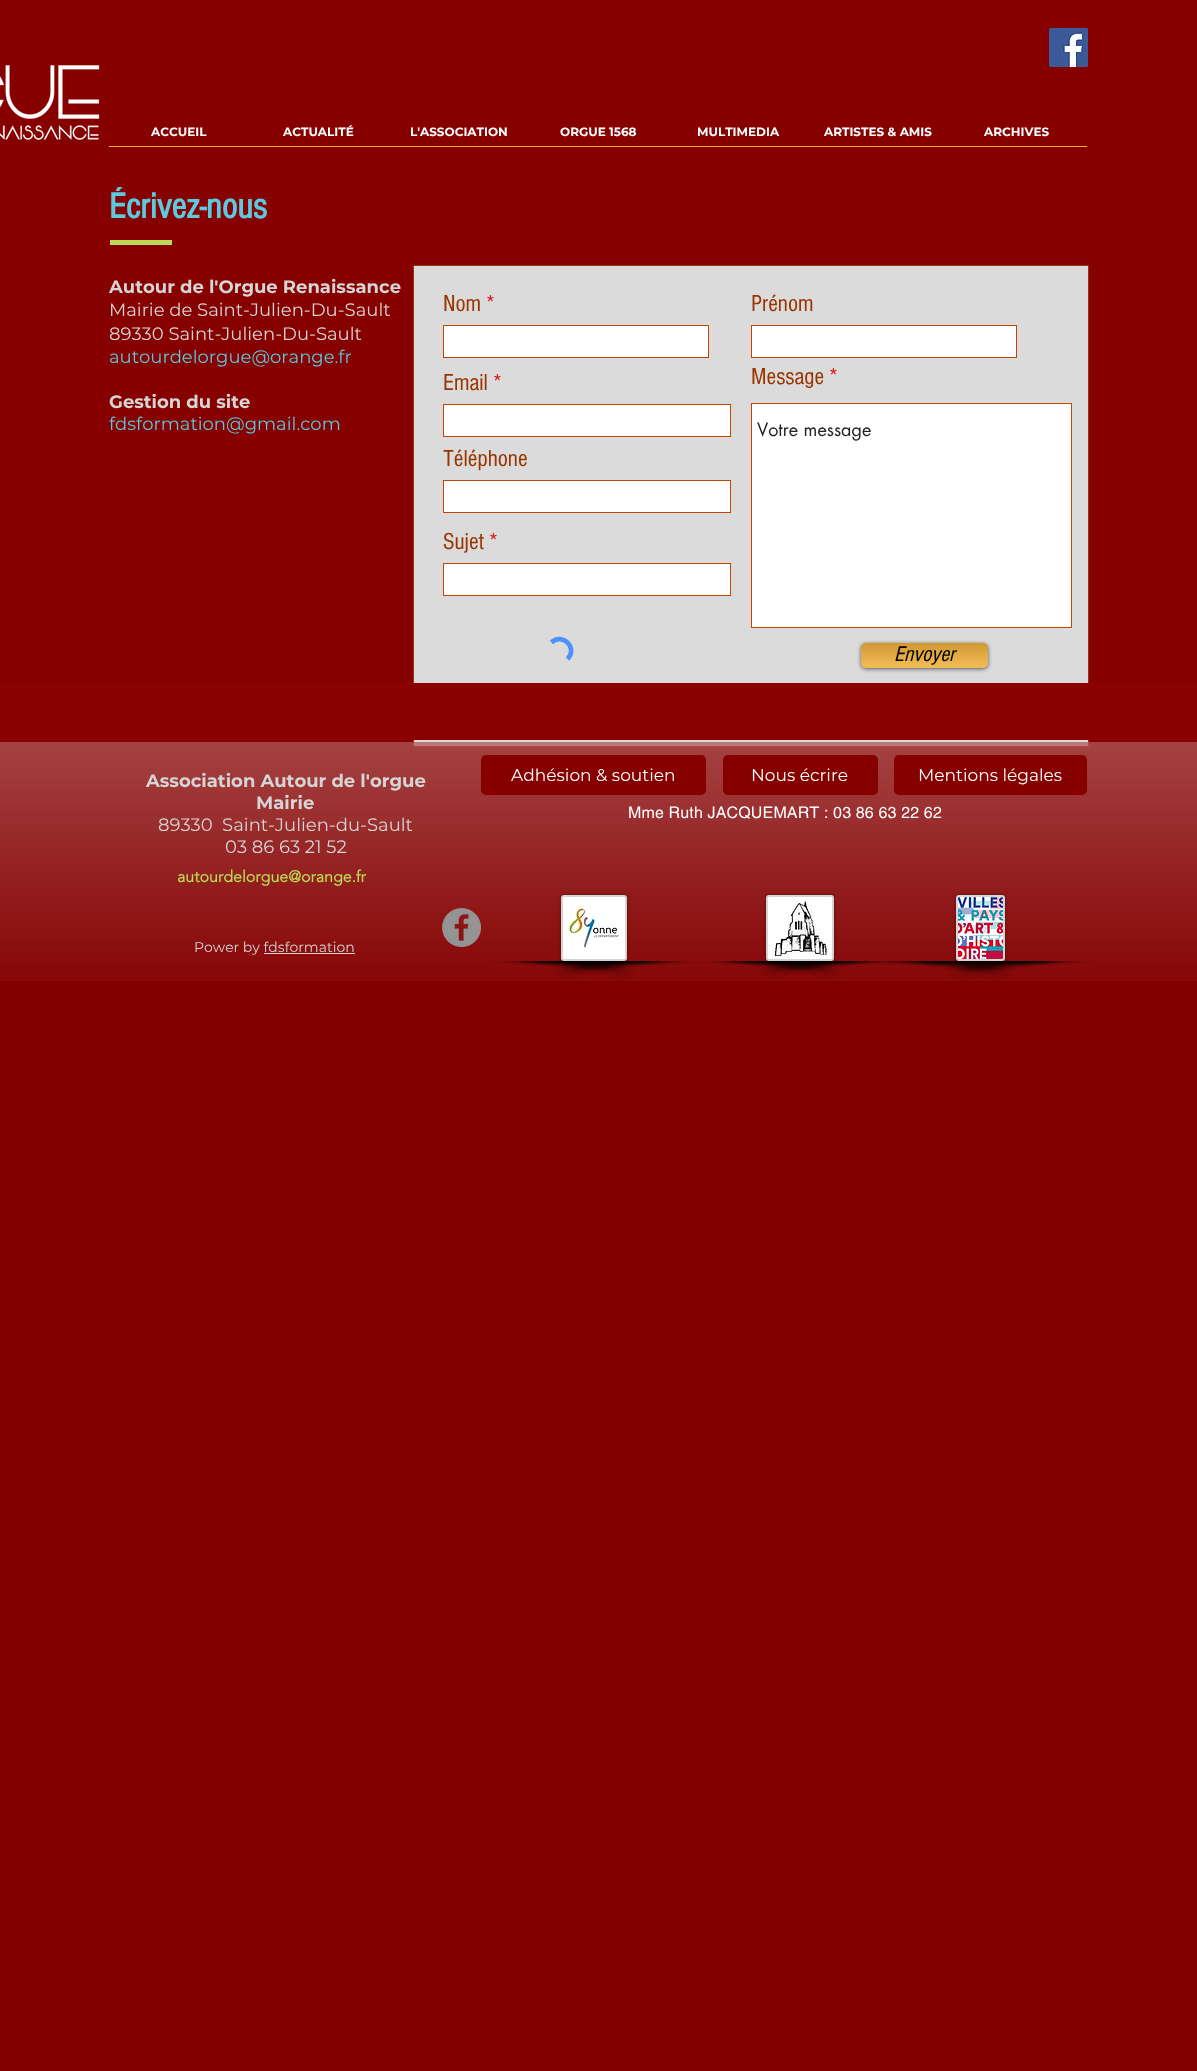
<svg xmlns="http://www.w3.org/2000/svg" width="1197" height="2071">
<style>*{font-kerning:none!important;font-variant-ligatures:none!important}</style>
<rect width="100%" height="100%" fill="#800000"/>
<rect y="187" width="1197" height="555" fill="#870000"/>
<text x="109" y="218" style="font-family:'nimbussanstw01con';font-size:37px;font-weight:bold;fill:#5bc9de">Écrivez-nous</text>
<rect width="1197" height="187" fill="#870000"/>
<image x="1049" y="28" width="39" height="39" href="media/1.png"/>
<image x="0" y="65" width="100" height="75" href="media/2.png"/>
<text x="151" y="136" style="font-family:Montserrat;font-size:12px;font-weight:bold;fill:#fff">ACCUEIL</text>
<text x="283" y="136" style="font-family:Montserrat;font-size:12px;font-weight:bold;fill:#fff">ACTUALITÉ</text>
<text x="410" y="136" style="font-family:Montserrat;font-size:12px;font-weight:bold;fill:#fff">L'ASSOCIATION</text>
<text x="560" y="136" style="font-family:Montserrat;font-size:12px;font-weight:bold;fill:#fff">ORGUE 1568</text>
<text x="697" y="136" style="font-family:Montserrat;font-size:12px;font-weight:bold;fill:#fff">MULTIMEDIA</text>
<text x="824" y="136" style="font-family:Montserrat;font-size:12px;font-weight:bold;fill:#fff">ARTISTES &amp; AMIS</text>
<text x="984" y="136" style="font-family:Montserrat;font-size:12px;font-weight:bold;fill:#fff">ARCHIVES</text>
<rect x="109" y="146" width="978" height="1" fill="#f7b02d"/>
<rect x="110" y="240" width="62" height="5" fill="#bada55"/>
<text x="109" y="293" style="font-family:Montserrat;font-size:18px;font-weight:bold;fill:#d5d5d5">Autour de l'Orgue Renaissance</text>
<text x="109" y="316" style="font-family:Montserrat;font-size:18px;fill:#d5d5d5">Mairie de Saint-Julien-Du-Sault</text>
<text x="109" y="340" style="font-family:Montserrat;font-size:18px;fill:#d5d5d5">89330 Saint-Julien-Du-Sault</text>
<text x="109" y="363" style="font-family:Montserrat;font-size:18px;fill:#5bc9de">autourdelorgue@orange.fr</text>
<text x="109" y="408" style="font-family:Montserrat;font-size:18px;font-weight:bold;fill:#d5d5d5">Gestion du site</text>
<text x="109" y="430" style="font-family:Montserrat;font-size:18px;fill:#5bc9de">fdsformation@gmail.com</text>
<rect x="413.5" y="265.5" width="675" height="481" fill="#dbdbdb" stroke="#993500"/>
<text x="443" y="311" style="font-family:'nimbussanstw01con';font-size:24px;fill:#993500">Nom</text>
<text x="486" y="311" style="font-family:'nimbussanstw01con';font-size:24px;fill:#e21c21">*</text>
<rect x="443.5" y="325.5" width="265" height="32" fill="#fff" stroke="#c74300"/>
<text x="751" y="311" style="font-family:'nimbussanstw01con';font-size:24px;fill:#993500">Prénom</text>
<rect x="751.5" y="325.5" width="265" height="32" fill="#fff" stroke="#c74300"/>
<text x="443" y="390" style="font-family:'nimbussanstw01con';font-size:24px;fill:#993500">Email</text>
<text x="493" y="390" style="font-family:'nimbussanstw01con';font-size:24px;fill:#e21c21">*</text>
<rect x="443.5" y="404.5" width="287" height="32" fill="#fff" stroke="#c74300"/>
<text x="751" y="384" style="font-family:'nimbussanstw01con';font-size:24px;fill:#993500">Message</text>
<text x="829" y="384" style="font-family:'nimbussanstw01con';font-size:24px;fill:#e21c21">*</text>
<rect x="751.5" y="403.5" width="320" height="224" fill="#fff" stroke="#c74300"/>
<text x="757" y="436" style="font-family:futura;font-size:18px;fill:#242323">Votre message</text>
<text x="443" y="466" style="font-family:'nimbussanstw01con';font-size:24px;fill:#993500">Téléphone</text>
<rect x="443.5" y="480.5" width="287" height="32" fill="#fff" stroke="#c74300"/>
<text x="443" y="549" style="font-family:'nimbussanstw01con';font-size:24px;fill:#993500">Sujet</text>
<text x="489" y="549" style="font-family:'nimbussanstw01con';font-size:24px;fill:#e21c21">*</text>
<rect x="443.5" y="563.5" width="287" height="32" fill="#fff" stroke="#c74300"/>
<path d="M551.5 642.5c10.5-10.5 27 5.5 16 16.5" fill="none" stroke="#4d90fe" stroke-width="4.6"/>
<rect x="861" y="644" width="127" height="25" rx="5" fill="#00000099" filter="blur(2px)"/>
<rect x="861" y="643" width="127" height="25" rx="5" fill="#f7b02d"/>
<image x="861" y="643" width="127" height="25" href="media/3.png"/>
<image x="861" y="643" width="127" height="25" href="media/4.png"/>
<text x="894" y="661" style="font-family:'nimbussanstw01con';font-size:22px;font-style:italic;fill:#000">Envoyer</text>
<rect y="683" width="1197" height="57" fill="#8b0000"/>
<rect y="742" width="1197" height="239" fill="#870000a8"/>
<image x="0" y="742" width="1197" height="239" href="media/5.png"/>
<text x="146" y="787" style="font-family:Montserrat;font-size:18px;font-weight:bold;fill:#d5d5d5">Association Autour de l'orgue</text>
<text x="256" y="809" style="font-family:Montserrat;font-size:18px;font-weight:bold;fill:#d5d5d5">Mairie</text>
<text x="158" y="831" style="font-family:Montserrat;font-size:18px;fill:#d5d5d5" xml:space="preserve">89330  Saint-Julien-du-Sault</text>
<text x="225" y="853" style="font-family:Montserrat;font-size:18px;fill:#d5d5d5">03 86 63 21 52</text>
<rect x="481" y="755" width="225" height="40" rx="5" fill="#870000"/>
<text x="511" y="781" style="font-family:Montserrat;font-size:17px;fill:#fff">Adhésion &amp; soutien</text>
<rect x="723" y="755" width="155" height="40" rx="5" fill="#870000"/>
<text x="751" y="781" style="font-family:Montserrat;font-size:17px;fill:#fff">Nous écrire</text>
<rect x="894" y="755" width="193" height="40" rx="5" fill="#870000"/>
<text x="918" y="781" style="font-family:Montserrat;font-size:17px;fill:#fff">Mentions légales</text>
<text x="628" y="818" style="font-family:helvetica;font-size:16px;letter-spacing:0.15px;fill:#fff">Mme Ruth JACQUEMART : 03 86 63 22 62</text>
<text x="177" y="882" style="font-family:'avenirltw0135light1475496';font-size:16px;font-weight:bold;fill:#bada55">autourdelorgue@orange.fr</text>
<text x="194" y="952" style="font-family:Montserrat;font-size:14px;fill:#d5d5d5">Power by fdsformation</text>
<rect x="264" y="953" width="91" height="1" fill="#d5d5d5"/>
<image x="442" y="908" width="39" height="39" href="media/6.png"/>
<rect x="561" y="895" width="66" height="66" rx="3" fill="#00000080" filter="blur(1.5px)"/>
<rect x="562" y="896" width="64" height="64" rx="2" fill="#d5d5d5" stroke="#d5d5d5" stroke-width="2"/>
<image x="563" y="897" width="62" height="62" href="media/7.png"/>
<image x="554" y="961" width="145" height="17" href="media/9.png"/>
<image x="489" y="961" width="145" height="17" href="media/8.png"/>
<rect x="766" y="895" width="68" height="66" rx="3" fill="#00000080" filter="blur(1.5px)"/>
<rect x="767" y="896" width="66" height="64" rx="2" fill="#d5d5d5" stroke="#d5d5d5" stroke-width="2"/>
<image x="768" y="897" width="64" height="62" href="media/10.png"/>
<image x="759" y="961" width="145" height="17" href="media/12.png"/>
<image x="696" y="961" width="145" height="17" href="media/11.png"/>
<rect x="956" y="895" width="49" height="66" rx="3" fill="#00000080" filter="blur(1.5px)"/>
<rect x="957" y="896" width="47" height="64" rx="2" fill="#d5d5d5" stroke="#d5d5d5" stroke-width="2"/>
<image x="958" y="897" width="45" height="62" href="media/13.png"/>
<image x="949" y="961" width="145" height="17" href="media/15.png"/>
<image x="873" y="961" width="139" height="17" href="media/14.png"/>
</svg>
